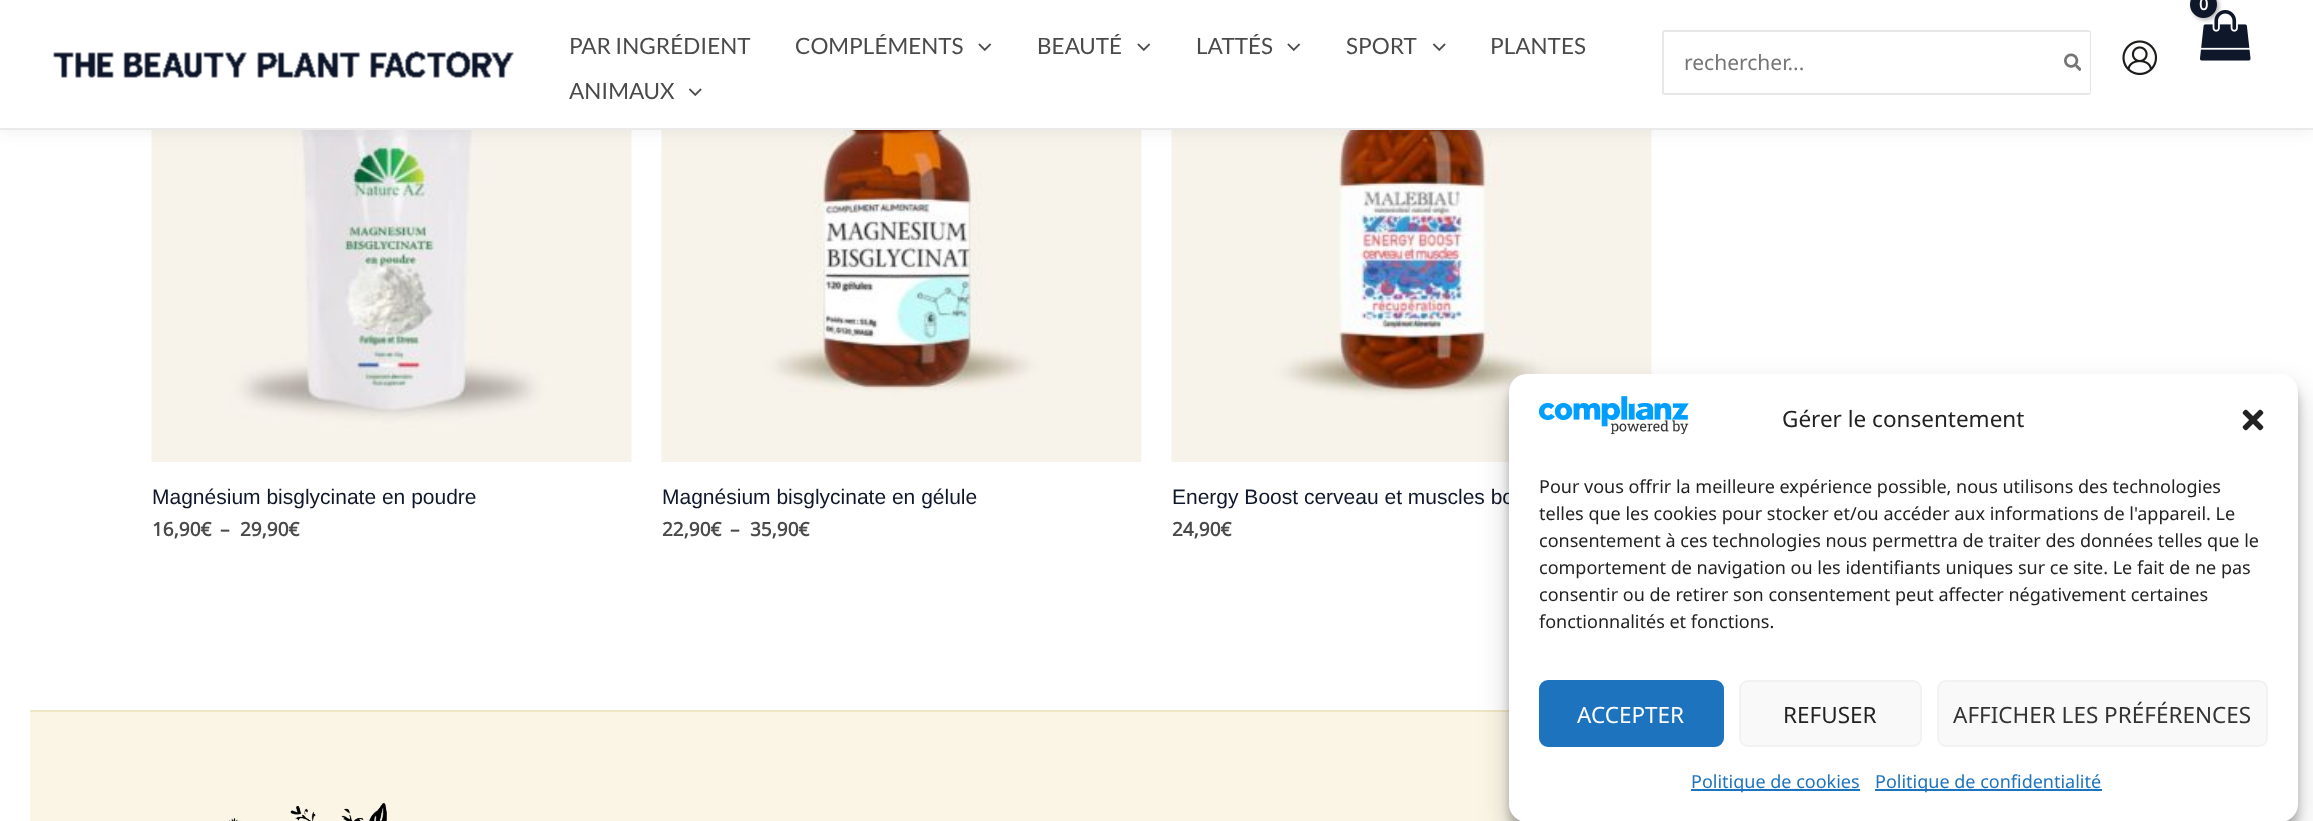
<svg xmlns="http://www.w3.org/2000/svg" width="2313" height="821">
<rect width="100%" height="100%" fill="#fff"/>
<image x="151" y="130" width="481" height="332" href="media/7.png"/>
<image x="661" y="130" width="481" height="332" href="media/8.png"/>
<image x="1171" y="130" width="481" height="332" href="media/9.png"/>
<rect y="3" width="2313" height="129" fill="#24324212" filter="blur(7.5px)"/>
<rect width="2313" height="128" fill="#fff"/>
<rect y="128" width="2313" height="2" fill="#eaeaea"/>
<image x="53" y="51" width="461" height="27" href="media/1.png"/>
<image x="2200" y="10" width="51" height="51" href="media/2.png"/>
<rect x="2192" y="-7" width="27" height="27" rx="13.5" fill="#0000004d" filter="blur(2px)"/>
<circle cx="2203.5" cy="4.5" r="13.5" fill="#0f172a"/>
<text x="2199" y="10" style="font-family:Noto Sans;font-size:16px;font-weight:bold;letter-spacing:-1px;fill:#fff">0</text>
<text x="569" y="54" style="font-family:Lato;font-size:22.5px;fill:#4a4a4a">PAR INGRÉDIENT</text>
<text x="795" y="54" style="font-family:Lato;font-size:22.5px;fill:#4a4a4a">COMPLÉMENTS</text>
<image x="978" y="43" width="14" height="8" href="media/3.png"/>
<text x="1037" y="54" style="font-family:Lato;font-size:22.5px;fill:#4a4a4a">BEAUTÉ</text>
<image x="1137" y="43" width="14" height="8" href="media/3.png"/>
<text x="1196" y="54" style="font-family:Lato;font-size:22.5px;fill:#4a4a4a">LATTÉS</text>
<image x="1287" y="43" width="14" height="8" href="media/3.png"/>
<text x="1346" y="54" style="font-family:Lato;font-size:22.5px;fill:#4a4a4a">SPORT</text>
<image x="1433" y="43" width="13" height="8" href="media/4.png"/>
<text x="1490" y="54" style="font-family:Lato;font-size:22.5px;fill:#4a4a4a">PLANTES</text>
<text x="569" y="99" style="font-family:Lato;font-size:22.5px;fill:#4a4a4a">ANIMAUX</text>
<image x="689" y="88" width="13" height="8" href="media/4.png"/>
<rect x="1663" y="31" width="427" height="63" rx="2" fill="none" stroke="#e7e7e7" stroke-width="2"/>
<rect x="1664" y="32" width="426" height="61" fill="#fff"/>
<text x="1684" y="70" style="font-family:Noto Sans;font-size:21px;fill:#757575">rechercher...</text>
<image x="2064" y="53" width="17" height="18" href="media/5.png"/>
<image x="2122" y="40" width="36" height="36" href="media/6.png"/>
<text x="152" y="504" style="font-family:Liberation Sans;font-size:21px;fill:#0f172a">Magnésium bisglycinate en poudre</text>
<text x="152" y="536" style="font-family:Noto Sans;font-size:19px;font-weight:bold;fill:#4a4a4a">16,90€</text>
<text x="220" y="536" style="font-family:Noto Sans;font-size:19px;font-weight:bold;fill:#4a4a4a">–</text>
<text x="240" y="536" style="font-family:Noto Sans;font-size:19px;font-weight:bold;fill:#4a4a4a">29,90€</text>
<text x="662" y="504" style="font-family:Liberation Sans;font-size:21px;fill:#0f172a">Magnésium bisglycinate en gélule</text>
<text x="662" y="536" style="font-family:Noto Sans;font-size:19px;font-weight:bold;fill:#4a4a4a">22,90€</text>
<text x="730" y="536" style="font-family:Noto Sans;font-size:19px;font-weight:bold;fill:#4a4a4a">–</text>
<text x="750" y="536" style="font-family:Noto Sans;font-size:19px;font-weight:bold;fill:#4a4a4a">35,90€</text>
<text x="1172" y="504" style="font-family:Liberation Sans;font-size:21px;fill:#0f172a">Energy Boost cerveau et muscles bo</text>
<text x="1172" y="536" style="font-family:Noto Sans;font-size:19px;font-weight:bold;fill:#4a4a4a">24,90€</text>
<rect x="30" y="712" width="1491" height="109" fill="#faf5e5"/>
<rect x="30" y="710" width="1479" height="2" fill="#f0e6c5"/>
<image x="229" y="803" width="158" height="18" href="media/10.png"/>
<rect x="1509" y="383" width="789" height="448" rx="18" fill="#0000003b" filter="blur(4.5px)"/>
<rect x="1509" y="389" width="789" height="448" rx="18" fill="#00000030" filter="blur(15px)"/>
<rect x="1509" y="374" width="789" height="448" rx="18" fill="#fff"/>
<image x="1539" y="396" width="150" height="38" href="media/11.png"/>
<text x="1782" y="427" style="font-family:Noto Sans;font-size:22.5px;fill:#222">Gérer le consentement</text>
<image x="2242" y="409" width="22" height="22" href="media/12.png"/>
<text x="1539" y="493" style="font-family:Noto Sans;font-size:18px;fill:#222">Pour vous offrir la meilleure expérience possible, nous utilisons des technologies</text>
<text x="1539" y="520" style="font-family:Noto Sans;font-size:18px;fill:#222">telles que les cookies pour stocker et/ou accéder aux informations de l'appareil. Le</text>
<text x="1539" y="547" style="font-family:Noto Sans;font-size:18px;fill:#222">consentement à ces technologies nous permettra de traiter des données telles que le</text>
<text x="1539" y="574" style="font-family:Noto Sans;font-size:18px;fill:#222">comportement de navigation ou les identifiants uniques sur ce site. Le fait de ne pas</text>
<text x="1539" y="601" style="font-family:Noto Sans;font-size:18px;fill:#222">consentir ou de retirer son consentement peut affecter négativement certaines</text>
<text x="1539" y="628" style="font-family:Noto Sans;font-size:18px;fill:#222">fonctionnalités et fonctions.</text>
<rect x="1540" y="681" width="183" height="65" rx="8" fill="#1e73be" stroke="#1e73be" stroke-width="2"/>
<text x="1577" y="723" style="font-family:Noto Sans;font-size:22.5px;fill:#fff">ACCEPTER</text>
<rect x="1740" y="681" width="181" height="65" rx="8" fill="#f9f9f9" stroke="#f2f2f2" stroke-width="2"/>
<text x="1783" y="723" style="font-family:Noto Sans;font-size:22.5px;fill:#222">REFUSER</text>
<rect x="1938" y="681" width="329" height="65" rx="8" fill="#f9f9f9" stroke="#f2f2f2" stroke-width="2"/>
<text x="1953" y="723" style="font-family:Noto Sans;font-size:22.5px;fill:#333">AFFICHER LES PRÉFÉRENCES</text>
<rect x="1691" y="789" width="169" height="2" fill="#1e73be"/>
<text x="1691" y="788" style="font-family:Noto Sans;font-size:18px;fill:#1e73be">Politique de cookies</text>
<rect x="1875" y="789" width="227" height="2" fill="#1e73be"/>
<text x="1875" y="788" style="font-family:Noto Sans;font-size:18px;fill:#1e73be">Politique de confidentialité</text>
</svg>
